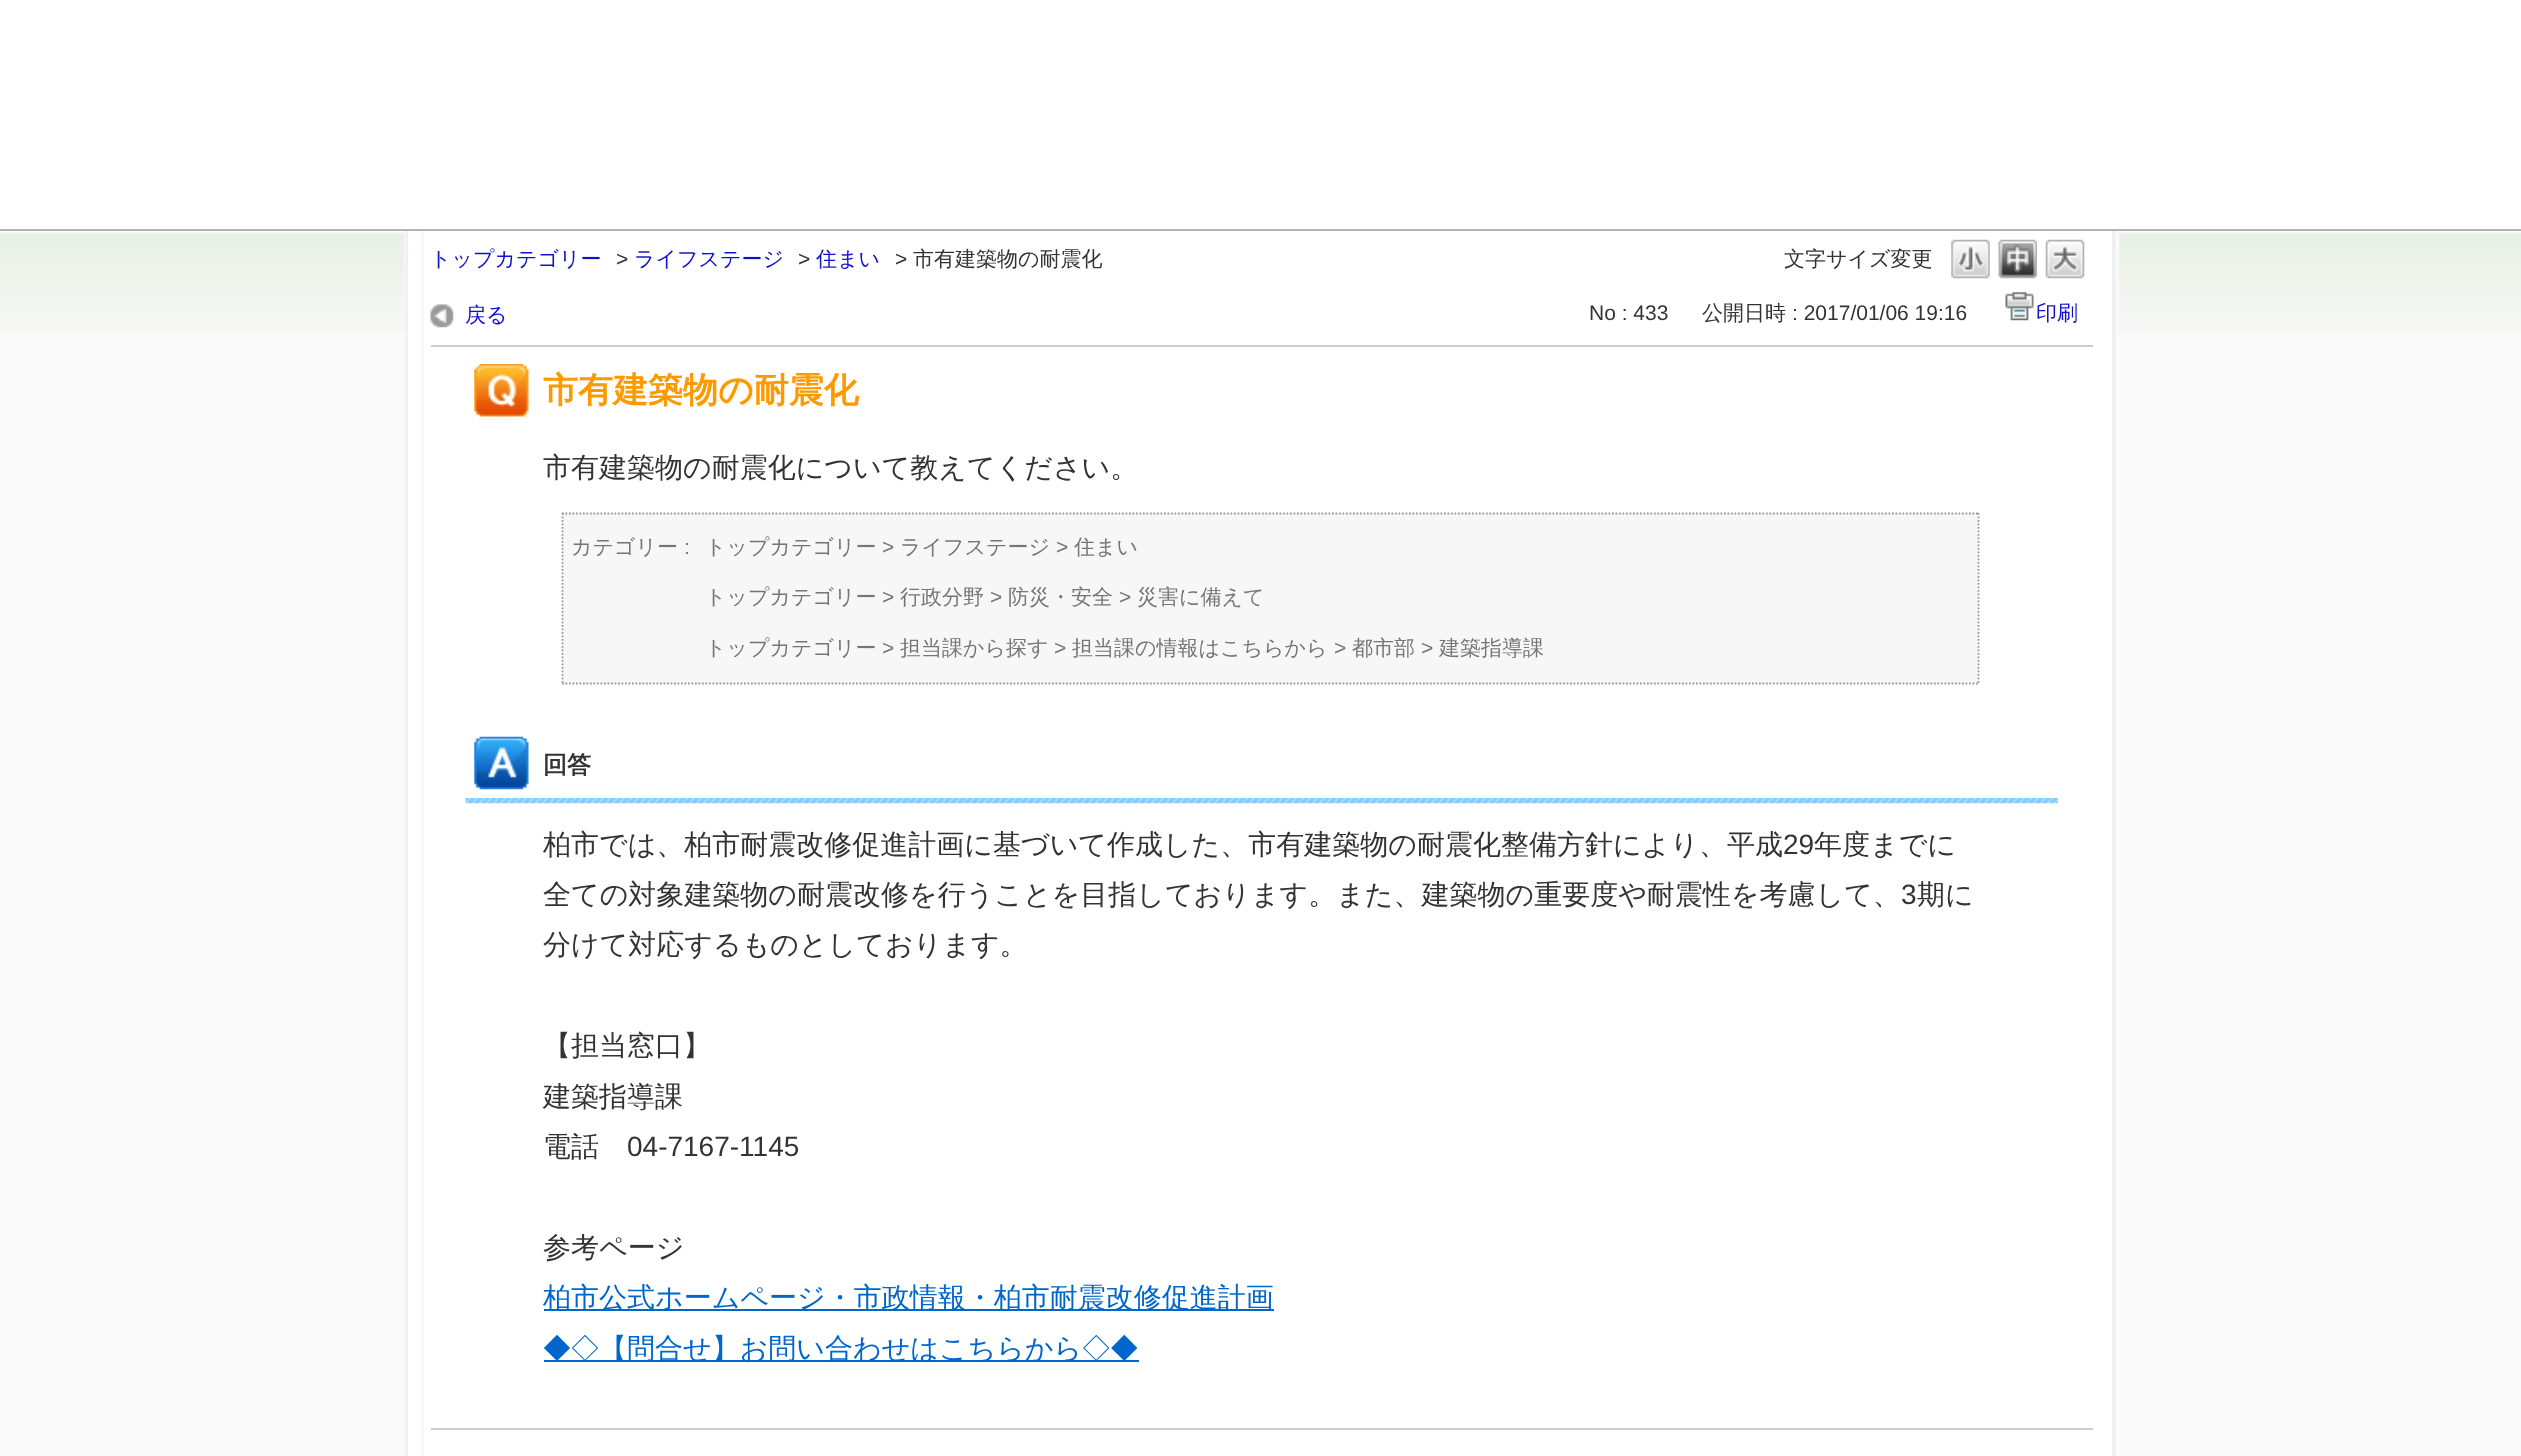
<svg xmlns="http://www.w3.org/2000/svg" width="2521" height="1456">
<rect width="100%" height="100%" fill="#fff"/>
<rect y="229" width="2521" height="2" fill="#b3b3b3"/>
<rect y="333" width="2521" height="1123" fill="#fafafa"/>
<image x="0" y="231" width="2521" height="102" href="media/1.png"/>
<rect x="404" y="231" width="1708" height="1225" fill="#fff"/>
<image x="2112" y="231" width="8" height="1225" href="media/2.png"/>
<image x="404" y="231" width="20" height="1225" href="media/3.png"/>
<text x="430" y="266" style="font-family:WenQuanYi Zen Hei;font-size:21px;font-weight:500;fill:#11c">トップカテゴリー</text>
<text x="616" y="266" style="font-family:Liberation Sans;font-size:21px;fill:#333">&gt;</text>
<text x="634" y="266" style="font-family:WenQuanYi Zen Hei;font-size:21px;font-weight:500;fill:#11c">ライフステージ</text>
<text x="798" y="266" style="font-family:Liberation Sans;font-size:21px;fill:#333">&gt;</text>
<text x="816" y="266" style="font-family:WenQuanYi Zen Hei;font-size:21px;font-weight:500;fill:#11c">住まい</text>
<text x="895" y="266" style="font-family:Liberation Sans;font-size:21px;fill:#333">&gt;</text>
<text x="913" y="266" style="font-family:WenQuanYi Zen Hei;font-size:21px;font-weight:500;fill:#333">市有建築物の耐震化</text>
<text x="1784" y="266" style="font-family:WenQuanYi Zen Hei;font-size:21px;font-weight:500;fill:#333">文字サイズ変更</text>
<image x="1951" y="239" width="39" height="40" href="media/4.png"/>
<image x="1998" y="239" width="39" height="40" href="media/5.png"/>
<image x="2045" y="239" width="40" height="40" href="media/6.png"/>
<rect x="431" y="345" width="1662" height="2" fill="#ccc"/>
<image x="430" y="304" width="24" height="24" href="media/7.png"/>
<text x="465" y="322" style="font-family:WenQuanYi Zen Hei;font-size:21px;font-weight:500;fill:#11c">戻る</text>
<text x="1589" y="320" style="font-family:Liberation Sans;font-size:21px;fill:#333">No : 433</text>
<text x="1702" y="320" style="font-family:WenQuanYi Zen Hei;font-size:21px;font-weight:500;fill:#333">公開日時</text>
<text x="1792" y="320" style="font-family:Liberation Sans;font-size:21px;fill:#333">: 2017/01/06 19:16</text>
<image x="2005" y="292" width="29" height="29" href="media/8.png"/>
<text x="2036" y="320" style="font-family:WenQuanYi Zen Hei;font-size:21px;font-weight:500;fill:#11c">印刷</text>
<image x="474" y="364" width="55" height="53" href="media/9.png"/>
<text x="543" y="402" style="font-family:WenQuanYi Zen Hei;font-size:35px;font-weight:bold;fill:#f90">市有建築物の耐震化</text>
<text x="543" y="477" style="font-family:WenQuanYi Zen Hei;font-size:28px;font-weight:500;fill:#333">市有建築物の耐震化について教えてください。</text>
<rect x="562" y="513" width="1417" height="171" fill="#f7f7f7"/>
<path d="M562 513.5h1417" fill="none" stroke="#999" stroke-width="1.8" stroke-dasharray="1.75 1.75"/>
<path d="M1978.5 513v171" fill="none" stroke="#999" stroke-width="1.8" stroke-dasharray="1.75 1.75"/>
<path d="M562 683.5h1417" fill="none" stroke="#999" stroke-width="1.8" stroke-dasharray="1.75 1.75"/>
<path d="M562.5 513v171" fill="none" stroke="#999" stroke-width="1.8" stroke-dasharray="1.75 1.75"/>
<text x="571" y="554" style="font-family:WenQuanYi Zen Hei;font-size:21px;font-weight:500;fill:#767676">カテゴリー</text>
<text x="684" y="554" style="font-family:Liberation Sans;font-size:21px;fill:#767676">:</text>
<text x="705" y="554" style="font-family:WenQuanYi Zen Hei;font-size:21px;font-weight:500;fill:#767676">トップカテゴリー</text>
<text x="882" y="554" style="font-family:Liberation Sans;font-size:21px;fill:#767676">&gt;</text>
<text x="900" y="554" style="font-family:WenQuanYi Zen Hei;font-size:21px;font-weight:500;fill:#767676">ライフステージ</text>
<text x="1056" y="554" style="font-family:Liberation Sans;font-size:21px;fill:#767676">&gt;</text>
<text x="1074" y="554" style="font-family:WenQuanYi Zen Hei;font-size:21px;font-weight:500;fill:#767676">住まい</text>
<text x="705" y="604" style="font-family:WenQuanYi Zen Hei;font-size:21px;font-weight:500;fill:#767676">トップカテゴリー</text>
<text x="882" y="604" style="font-family:Liberation Sans;font-size:21px;fill:#767676">&gt;</text>
<text x="900" y="604" style="font-family:WenQuanYi Zen Hei;font-size:21px;font-weight:500;fill:#767676">行政分野</text>
<text x="990" y="604" style="font-family:Liberation Sans;font-size:21px;fill:#767676">&gt;</text>
<text x="1008" y="604" style="font-family:WenQuanYi Zen Hei;font-size:21px;font-weight:500;fill:#767676">防災・安全</text>
<text x="1119" y="604" style="font-family:Liberation Sans;font-size:21px;fill:#767676">&gt;</text>
<text x="1137" y="604" style="font-family:WenQuanYi Zen Hei;font-size:21px;font-weight:500;fill:#767676">災害に備えて</text>
<text x="705" y="655" style="font-family:WenQuanYi Zen Hei;font-size:21px;font-weight:500;fill:#767676">トップカテゴリー</text>
<text x="882" y="655" style="font-family:Liberation Sans;font-size:21px;fill:#767676">&gt;</text>
<text x="900" y="655" style="font-family:WenQuanYi Zen Hei;font-size:21px;font-weight:500;fill:#767676">担当課から探す</text>
<text x="1054" y="655" style="font-family:Liberation Sans;font-size:21px;fill:#767676">&gt;</text>
<text x="1072" y="655" style="font-family:WenQuanYi Zen Hei;font-size:21px;font-weight:500;fill:#767676">担当課の情報はこちらから</text>
<text x="1334" y="655" style="font-family:Liberation Sans;font-size:21px;fill:#767676">&gt;</text>
<text x="1352" y="655" style="font-family:WenQuanYi Zen Hei;font-size:21px;font-weight:500;fill:#767676">都市部</text>
<text x="1421" y="655" style="font-family:Liberation Sans;font-size:21px;fill:#767676">&gt;</text>
<text x="1439" y="655" style="font-family:WenQuanYi Zen Hei;font-size:21px;font-weight:500;fill:#767676">建築指導課</text>
<image x="465" y="798" width="1593" height="6" href="media/10.png"/>
<image x="474" y="736" width="55" height="54" href="media/11.png"/>
<text x="543" y="773" style="font-family:WenQuanYi Zen Hei;font-size:24px;font-weight:bold;fill:#333">回答</text>
<rect x="431" y="1428" width="1662" height="2" fill="#ccc"/>
<text x="543" y="854" style="font-family:WenQuanYi Zen Hei;font-size:28px;font-weight:500;fill:#333">柏市では、柏市耐震改修促進計画に基づいて作成した、市有建築物の耐震化整備方針により、平成</text>
<text x="1783" y="854" style="font-family:Liberation Sans;font-size:28px;fill:#333">29</text>
<text x="1814" y="854" style="font-family:WenQuanYi Zen Hei;font-size:28px;font-weight:500;fill:#333">年度までに</text>
<text x="543" y="904" style="font-family:WenQuanYi Zen Hei;font-size:28px;font-weight:500;fill:#333">全ての対象建築物の耐震改修を行うことを目指しております。また、建築物の重要度や耐震性を考慮して、</text>
<text x="1901" y="904" style="font-family:Liberation Sans;font-size:28px;fill:#333">3</text>
<text x="1917" y="904" style="font-family:WenQuanYi Zen Hei;font-size:28px;font-weight:500;fill:#333">期に</text>
<text x="543" y="954" style="font-family:WenQuanYi Zen Hei;font-size:28px;font-weight:500;fill:#333">分けて対応するものとしております。</text>
<text x="543" y="1055" style="font-family:WenQuanYi Zen Hei;font-size:28px;font-weight:500;fill:#333">【担当窓口】</text>
<text x="543" y="1106" style="font-family:WenQuanYi Zen Hei;font-size:28px;font-weight:500;fill:#333">建築指導課</text>
<text x="543" y="1156" style="font-family:WenQuanYi Zen Hei;font-size:28px;font-weight:500;fill:#333">電話</text>
<text x="627" y="1156" style="font-family:Liberation Sans;font-size:28px;fill:#333">04-7167-1145</text>
<text x="543" y="1257" style="font-family:WenQuanYi Zen Hei;font-size:28px;font-weight:500;fill:#333">参考ページ</text>
<rect x="544" y="1309" width="730" height="2" fill="#06c"/>
<text x="543" y="1307" style="font-family:WenQuanYi Zen Hei;font-size:28px;font-weight:500;fill:#06c">柏市公式ホームページ・市政情報・柏市耐震改修促進計画</text>
<rect x="544" y="1360" width="595" height="2" fill="#06c"/>
<text x="543" y="1358" style="font-family:WenQuanYi Zen Hei;font-size:28px;font-weight:500;fill:#06c">◆◇【問合せ】お問い合わせはこちらから◇◆</text>
</svg>
